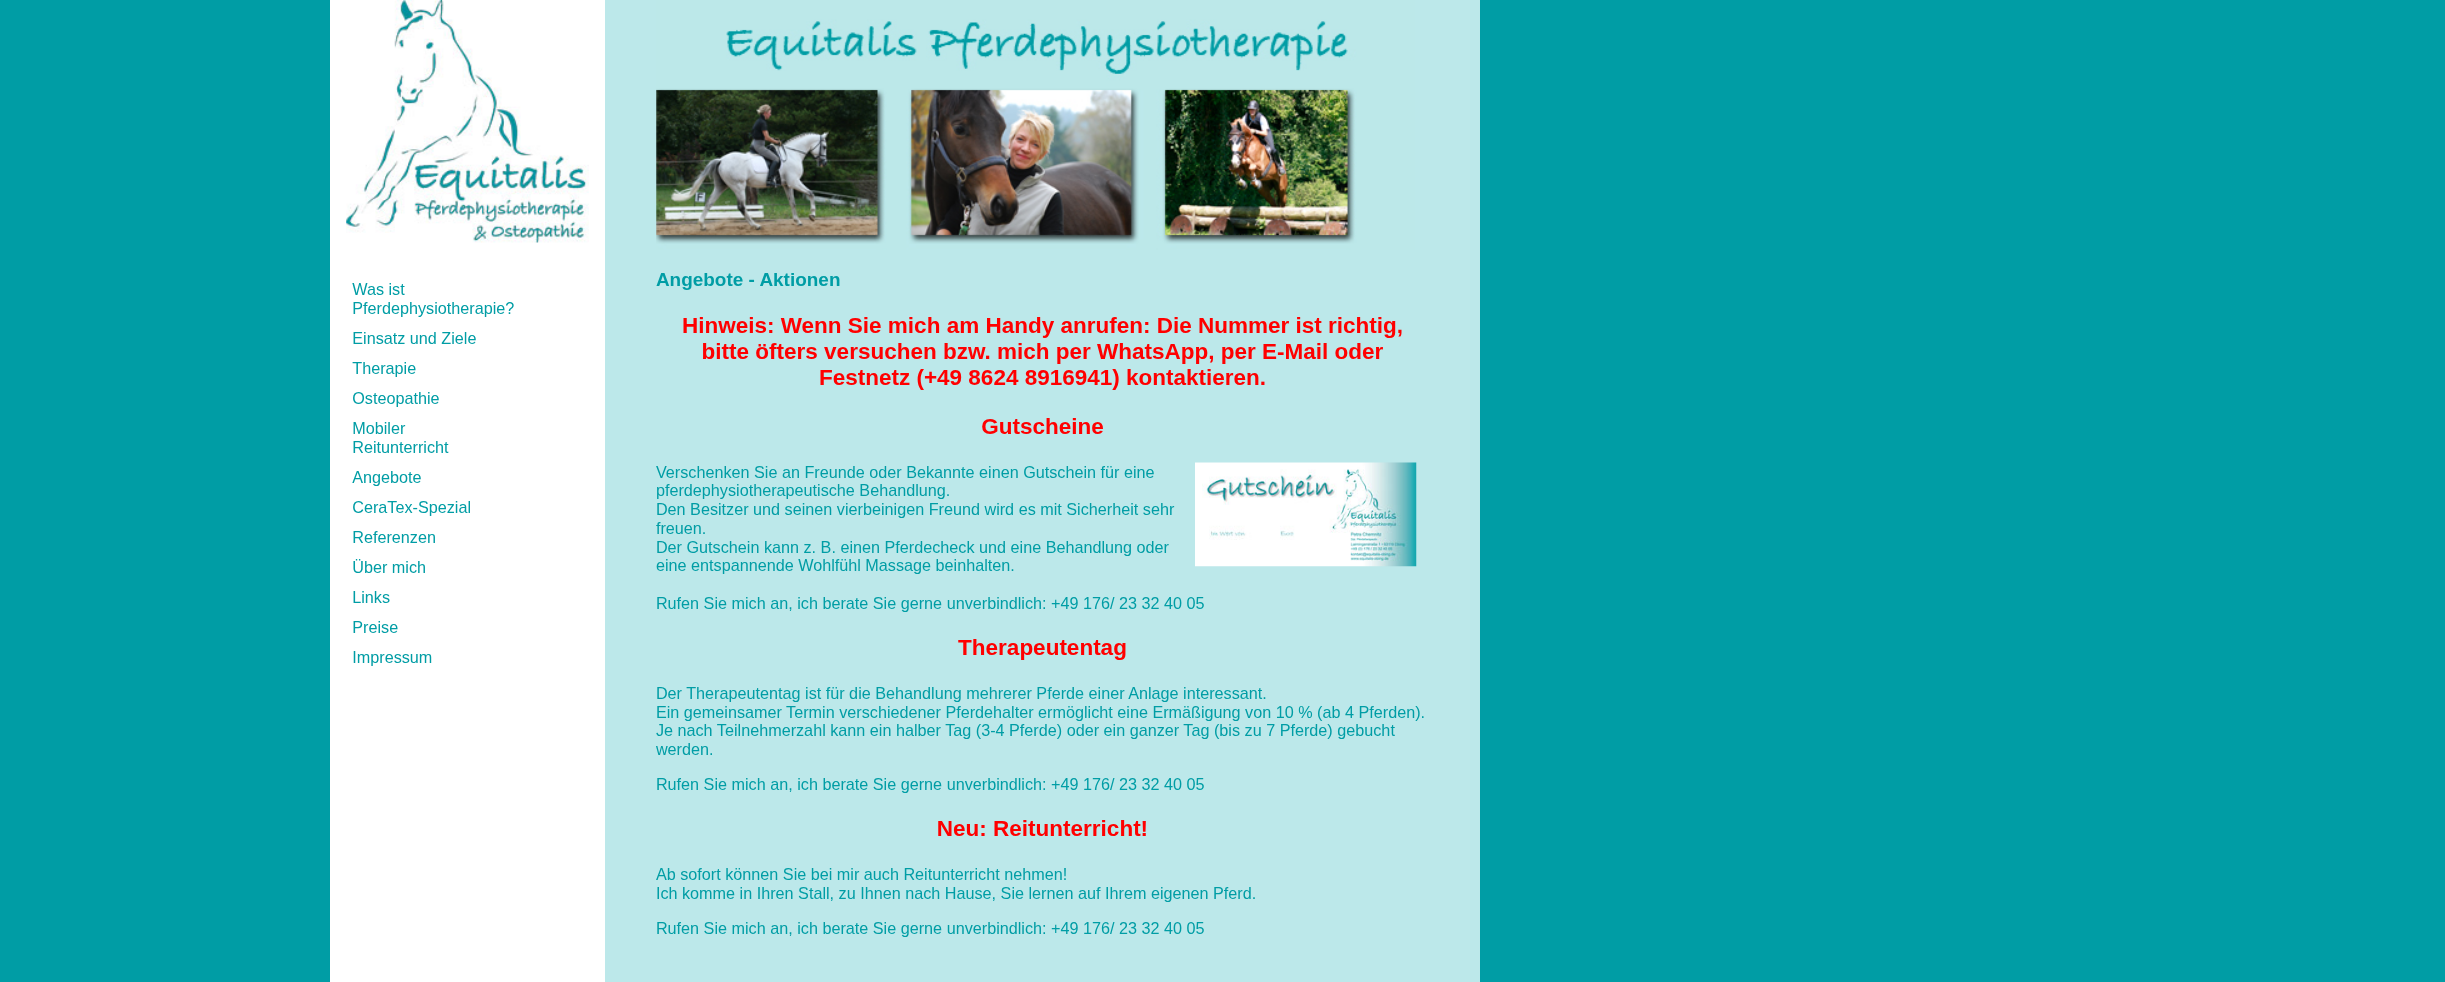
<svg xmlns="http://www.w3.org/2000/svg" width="2445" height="982">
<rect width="100%" height="100%" fill="#009da5"/>
<rect x="330" width="275" height="982" fill="#fff"/>
<image x="346" y="0" width="243" height="243" href="media/1.png"/>
<image x="605" y="0" width="875" height="982" href="media/2.png"/>
<image x="352" y="283" width="162" height="383" href="media/3.png"/>
</svg>
